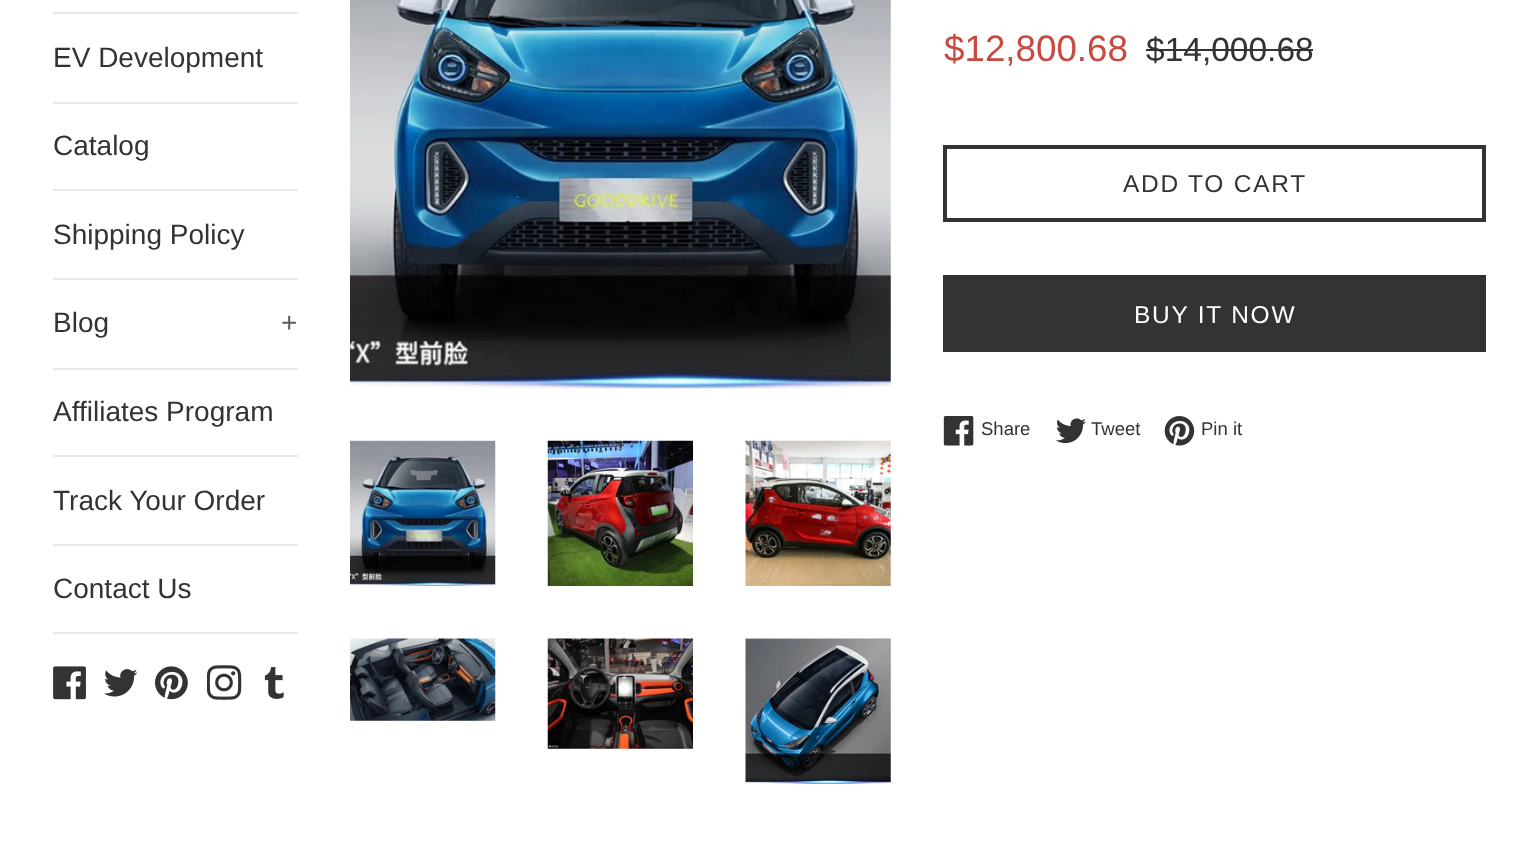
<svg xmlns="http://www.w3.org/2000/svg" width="1537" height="843">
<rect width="100%" height="100%" fill="#fff"/>
<rect x="53" y="12" width="245" height="2" fill="#e8e8e8"/>
<rect x="53" y="102" width="245" height="2" fill="#e8e8e8"/>
<text x="53" y="67" style="font-family:Liberation Sans;font-size:28px;fill:#333">EV Development</text>
<rect x="53" y="189" width="245" height="2" fill="#e8e8e8"/>
<text x="53" y="155" style="font-family:Liberation Sans;font-size:28px;fill:#333">Catalog</text>
<rect x="53" y="278" width="245" height="2" fill="#e8e8e8"/>
<text x="53" y="244" style="font-family:Liberation Sans;font-size:28px;fill:#333">Shipping Policy</text>
<rect x="53" y="368" width="245" height="2" fill="#e8e8e8"/>
<text x="53" y="332" style="font-family:Liberation Sans;font-size:28px;fill:#333">Blog</text>
<text x="281" y="332" style="font-family:Liberation Sans;font-size:28px;fill:#5c5c5c">+</text>
<rect x="53" y="455" width="245" height="2" fill="#e8e8e8"/>
<text x="53" y="421" style="font-family:Liberation Sans;font-size:28px;fill:#333">Affiliates Program</text>
<rect x="53" y="544" width="245" height="2" fill="#e8e8e8"/>
<text x="53" y="510" style="font-family:Liberation Sans;font-size:28px;fill:#333">Track Your Order</text>
<rect x="53" y="632" width="245" height="2" fill="#e8e8e8"/>
<text x="53" y="598" style="font-family:Liberation Sans;font-size:28px;fill:#333">Contact Us</text>
<image x="53" y="666" width="33" height="34" href="media/1.png"/>
<image x="104" y="669" width="34" height="28" href="media/2.png"/>
<image x="155" y="666" width="33" height="34" href="media/3.png"/>
<image x="207" y="665" width="35" height="35" href="media/4.png"/>
<image x="264" y="667" width="20" height="32" href="media/5.png"/>
<image x="350" y="0" width="541" height="389" href="media/6.png"/>
<image x="350" y="440" width="146" height="146" href="media/7.png"/>
<image x="547" y="440" width="146" height="146" href="media/8.png"/>
<image x="745" y="440" width="146" height="146" href="media/9.png"/>
<image x="350" y="638" width="146" height="83" href="media/10.png"/>
<image x="547" y="638" width="146" height="111" href="media/11.png"/>
<image x="745" y="638" width="146" height="146" href="media/12.png"/>
<text x="944" y="61" style="font-family:Liberation Sans;font-size:36.75px;fill:#c8493f">$12,800.68</text>
<text x="1146" y="61" style="font-family:Liberation Sans;font-size:33.5px;fill:#333">$14,000.68</text>
<rect x="1146" y="49" width="167" height="2" fill="#333"/>
<rect x="945" y="147" width="539" height="73" fill="none" stroke="#333" stroke-width="4"/>
<text x="1123" y="192" style="font-family:Liberation Sans;font-size:24.5px;letter-spacing:1.75px;fill:#333">ADD TO CART</text>
<rect x="943" y="275" width="543" height="77" fill="#333"/>
<text x="1134" y="323" style="font-family:Liberation Sans;font-size:24.5px;letter-spacing:1.75px;fill:#fff">BUY IT NOW</text>
<image x="943" y="416" width="31" height="30" href="media/13.png"/>
<text x="981" y="435" style="font-family:Liberation Sans;font-size:18.5px;fill:#333">Share</text>
<image x="1056" y="418" width="30" height="26" href="media/14.png"/>
<text x="1091" y="435" style="font-family:Liberation Sans;font-size:18.5px;fill:#333">Tweet</text>
<image x="1164" y="416" width="31" height="30" href="media/15.png"/>
<text x="1201" y="435" style="font-family:Liberation Sans;font-size:18.5px;fill:#333">Pin it</text>
</svg>
